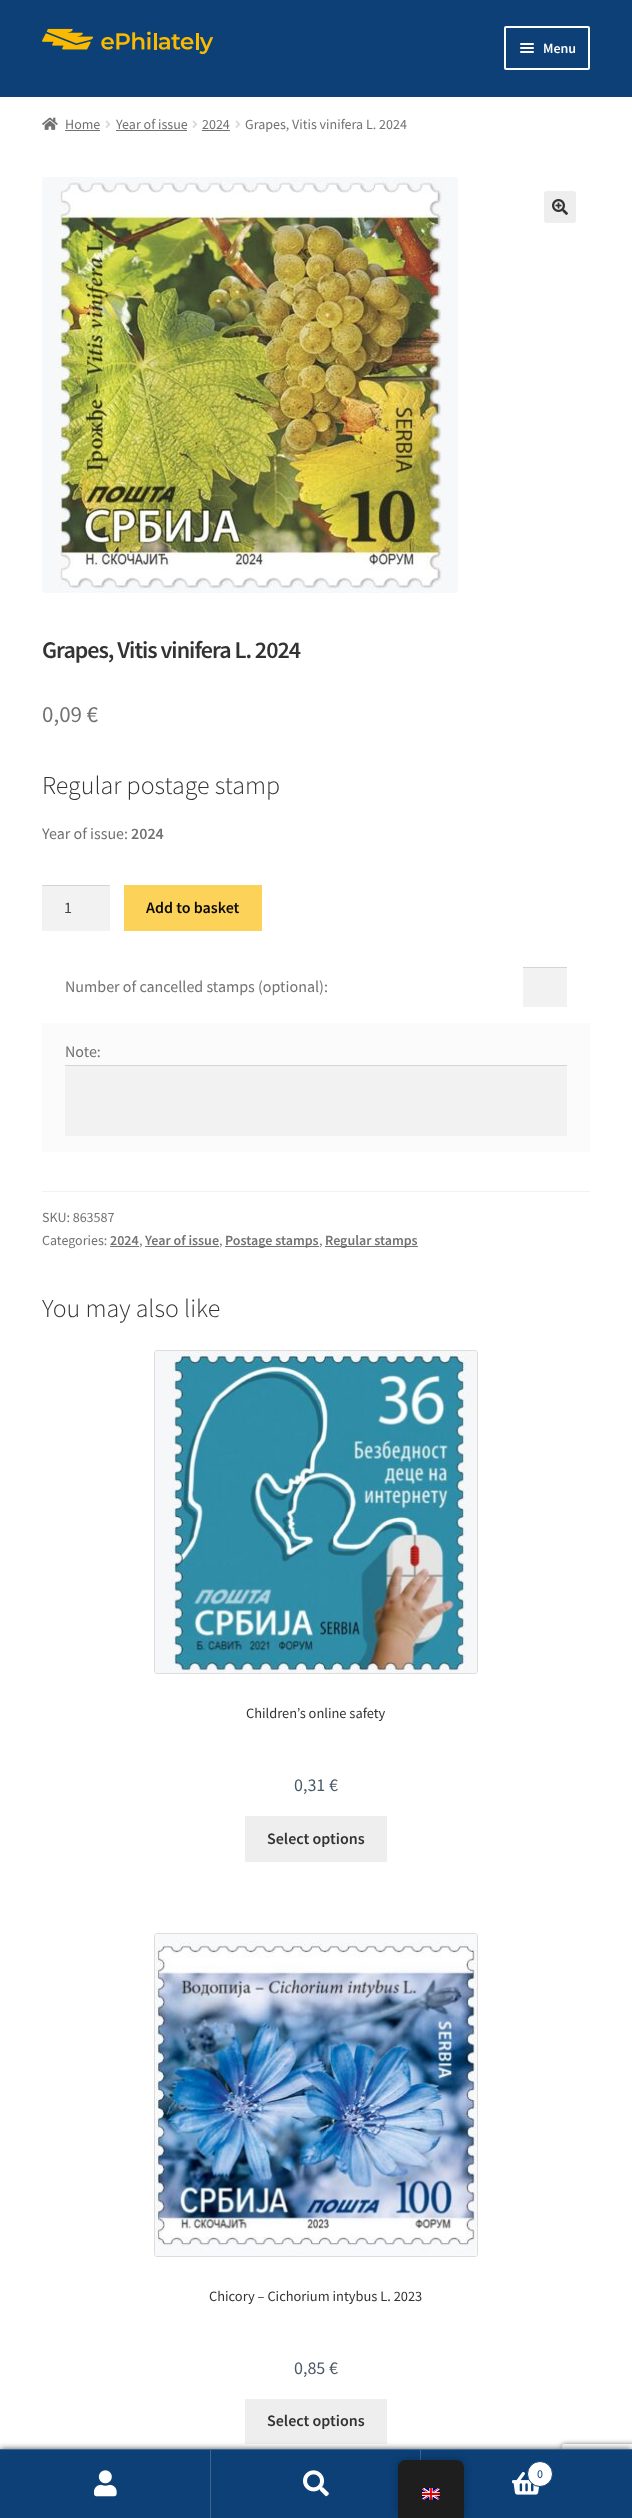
<svg xmlns="http://www.w3.org/2000/svg" width="632" height="2518">
<defs>
<clipPath id="clip1"><path d="M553 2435h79v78h-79zm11 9h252c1 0 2 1 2 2v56c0 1-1 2-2 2h-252c-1 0-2-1-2-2v-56c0-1 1-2 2-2z" clip-rule="evenodd"/></clipPath>
</defs>
<rect width="100%" height="100%" fill="#fff"/>
<rect width="632" height="97" fill="#0c4076"/>
<image x="42" y="28" width="172" height="27" href="media/1.png"/>
<rect x="505" y="27" width="84" height="42" rx="1" fill="none" stroke="#fff" stroke-width="2"/>
<rect x="520" y="43" width="14" height="2" rx="1" fill="#fff"/>
<rect x="520" y="47" width="14" height="2" rx="1" fill="#fff"/>
<text x="543" y="53" style="font-family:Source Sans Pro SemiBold;font-size:14px;font-weight:600;fill:#fff">Menu</text>
<rect x="520" y="51" width="14" height="2" rx="1" fill="#fff"/>
<image x="42" y="117" width="16" height="13" href="media/2.png"/>
<text x="65" y="129" style="font-family:Source Sans Pro;font-size:14px;fill:#727272">Home</text>
<rect x="65" y="130" width="35" height="1" fill="#727272"/>
<image x="105" y="120" width="6" height="8" href="media/3.png"/>
<text x="116" y="129" style="font-family:Source Sans Pro;font-size:14px;fill:#727272">Year of issue</text>
<rect x="116" y="130" width="71" height="1" fill="#727272"/>
<image x="192" y="120" width="6" height="8" href="media/3.png"/>
<text x="202" y="129" style="font-family:Source Sans Pro;font-size:14px;fill:#727272">2024</text>
<rect x="202" y="130" width="28" height="1" fill="#727272"/>
<image x="235" y="120" width="6" height="8" href="media/3.png"/>
<text x="245" y="129" style="font-family:Source Sans Pro;font-size:14px;fill:#727272">Grapes, Vitis vinifera L. 2024</text>
<image x="42" y="177" width="416" height="416" href="media/4.png"/>
<rect x="544" y="191" width="32" height="32" rx="3" fill="#eee"/>
<image x="552" y="199" width="16" height="16" href="media/5.png"/>
<text x="42" y="658" style="font-family:Source Sans Pro SemiBold;font-size:24px;font-weight:600;letter-spacing:-1px;fill:#333">Grapes, Vitis vinifera L. 2024</text>
<text x="42" y="722" style="font-family:Source Sans Pro;font-size:23px;fill:#727272">0,09 €</text>
<text x="42" y="794" style="font-family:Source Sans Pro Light;font-size:25.9px;font-weight:300;fill:#333">Regular postage stamp</text>
<text x="42" y="839" style="font-family:Source Sans Pro;font-size:16px;fill:#727272">Year of issue:</text>
<text x="131" y="839" style="font-family:Source Sans Pro SemiBold;font-size:16px;font-weight:600;fill:#727272">2024</text>
<rect x="42" y="886" width="68" height="45" fill="#f2f2f2"/>
<rect x="42" y="885" width="68" height="1" fill="#d4d4d4"/>
<text x="64" y="913" style="font-family:Source Sans Pro;font-size:16px;fill:#43454b">1</text>
<rect x="124" y="885" width="138" height="46" fill="#fcd259"/>
<text x="146" y="913" style="font-family:Source Sans Pro SemiBold;font-size:16px;font-weight:600;fill:#0a0a0a">Add to basket</text>
<text x="65" y="992" style="font-family:Source Sans Pro;font-size:16px;fill:#727272">Number of cancelled stamps (optional):</text>
<rect x="523" y="968" width="44" height="39" fill="#f2f2f2"/>
<rect x="523" y="967" width="44" height="1" fill="#d4d4d4"/>
<rect x="42" y="1023" width="548" height="129" fill="#fbfbfb"/>
<text x="65" y="1057" style="font-family:Source Sans Pro;font-size:16px;fill:#727272">Note:</text>
<rect x="65" y="1066" width="502" height="70" fill="#f2f2f2"/>
<rect x="65" y="1065" width="502" height="1" fill="#d4d4d4"/>
<rect x="42" y="1191" width="548" height="1" fill="#f2f2f2"/>
<text x="42" y="1222" style="font-family:Source Sans Pro;font-size:14px;fill:#727272">SKU: 863587</text>
<text x="42" y="1245" style="font-family:Source Sans Pro;font-size:14px;fill:#727272">Categories:</text>
<text x="110" y="1245" style="font-family:Source Sans Pro SemiBold;font-size:14px;font-weight:600;fill:#727272">2024</text>
<rect x="110" y="1246" width="29" height="1" fill="#727272"/>
<text x="139" y="1245" style="font-family:Source Sans Pro;font-size:14px;fill:#727272">,</text>
<text x="145" y="1245" style="font-family:Source Sans Pro SemiBold;font-size:14px;font-weight:600;fill:#727272">Year of issue</text>
<rect x="145" y="1246" width="74" height="1" fill="#727272"/>
<text x="219" y="1245" style="font-family:Source Sans Pro;font-size:14px;fill:#727272">,</text>
<rect x="225" y="1246" width="94" height="1" fill="#727272"/>
<text x="225" y="1245" style="font-family:Source Sans Pro SemiBold;font-size:14px;font-weight:600;fill:#727272">Postage stamps</text>
<text x="319" y="1245" style="font-family:Source Sans Pro;font-size:14px;fill:#727272">,</text>
<rect x="325" y="1246" width="93" height="1" fill="#727272"/>
<text x="325" y="1245" style="font-family:Source Sans Pro SemiBold;font-size:14px;font-weight:600;fill:#727272">Regular stamps</text>
<text x="42" y="1317" style="font-family:Source Sans Pro Light;font-size:25.9px;font-weight:300;fill:#333">You may also like</text>
<rect x="154.5" y="1350.5" width="323" height="323" rx="2.5" fill="none" stroke="#dedcdc"/>
<image x="155" y="1351" width="322" height="322" href="media/6.png"/>
<text x="246" y="1718" style="font-family:Source Sans Pro;font-size:14.4px;fill:#333">Children’s online safety</text>
<text x="294" y="1791" style="font-family:Source Sans Pro;font-size:18px;fill:#4b5a68">0,31 €</text>
<rect x="245" y="1816" width="142" height="46" fill="#eee"/>
<text x="267" y="1844" style="font-family:Source Sans Pro SemiBold;font-size:16px;font-weight:600;fill:#333">Select options</text>
<rect x="154.5" y="1933.5" width="323" height="323" rx="2.5" fill="none" stroke="#dedcdc"/>
<image x="155" y="1934" width="322" height="322" href="media/7.png"/>
<text x="209" y="2301" style="font-family:Source Sans Pro;font-size:14.4px;fill:#333">Chicory – Cichorium intybus L. 2023</text>
<text x="294" y="2374" style="font-family:Source Sans Pro;font-size:18px;fill:#4b5a68">0,85 €</text>
<rect x="245" y="2399" width="142" height="45" fill="#eee"/>
<text x="267" y="2426" style="font-family:Source Sans Pro SemiBold;font-size:16px;font-weight:600;fill:#333">Select options</text>
<rect y="2449" width="632" height="69" fill="#000000b3" filter="blur(3px)"/>
<g clip-path="url(#clip1)">
<rect x="562" y="2444" width="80" height="60" rx="2" fill="#808080" filter="blur(2.5px)"/>
</g>
<rect y="2449" width="632" height="1" fill="#3d6691"/>
<rect y="2450" width="210" height="68" fill="#0c4076"/>
<rect x="210" y="2450" width="1" height="68" fill="#3d6691"/>
<image x="94" y="2470" width="23" height="27" href="media/8.png"/>
<rect x="211" y="2450" width="209" height="68" fill="#0c4076"/>
<rect x="420" y="2450" width="1" height="10" fill="#3d6691"/>
<image x="303" y="2470" width="26" height="27" href="media/9.png"/>
<rect x="421" y="2450" width="211" height="68" fill="#0c4076"/>
<image x="512" y="2472" width="28" height="23" href="media/10.png"/>
<circle cx="540" cy="2474" r="12.5" fill="#fff" stroke="#0c4076"/>
<text x="537" y="2478" style="font-family:Source Sans Pro;font-size:12px;fill:#0c4076">0</text>
<rect x="398" y="2460" width="66" height="58" rx="8" fill="#00000040" filter="blur(4px)"/>
<path d="M406 2460h50c4.5 0 8 3.5 8 8v50h-66v-50c0-4.5 3.5-8 8-8z" fill="#1e1e1e"/>
<image x="422" y="2488" width="18" height="12" href="media/11.png"/>
</svg>
